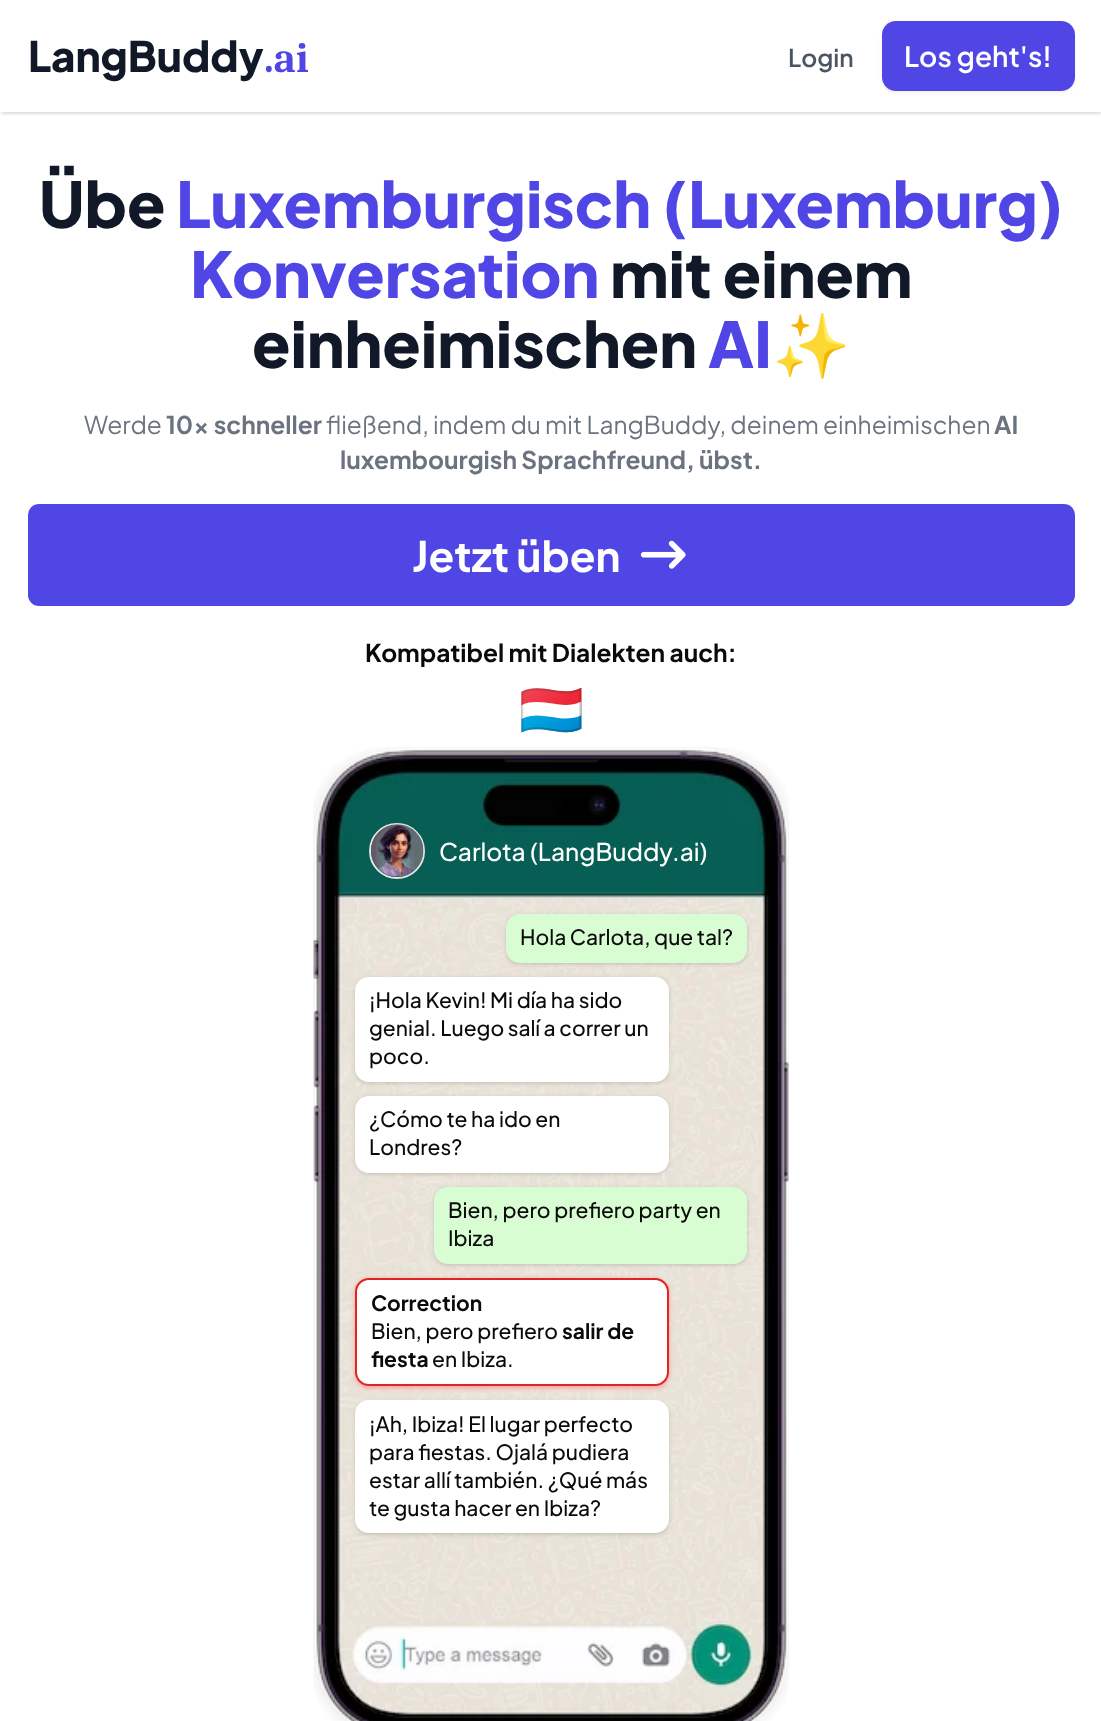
<svg xmlns="http://www.w3.org/2000/svg" width="1101" height="1721">
<defs>
<clipPath id="clip1"><rect x="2" y="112" width="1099" height="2"/></clipPath>
<clipPath id="clip2"><rect x="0" y="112" width="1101" height="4"/></clipPath>
</defs>
<rect width="100%" height="100%" fill="#fff"/>
<g clip-path="url(#clip1)">
<rect x="2" y="4" width="1099" height="108" fill="#0000001a" filter="blur(2px)"/>
</g>
<g clip-path="url(#clip2)">
<rect y="2" width="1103" height="112" fill="#0000001a" filter="blur(2.5px)"/>
</g>
<text x="28" y="72" style="font-family:Plus Jakarta Sans;font-size:42px;font-weight:800;fill:#111827">LangBuddy</text>
<text x="264" y="72" style="font-family:Caladea;font-size:42px;font-weight:bold;fill:#4f46e5">.ai</text>
<text x="788" y="67" style="font-family:Plus Jakarta Sans;font-size:24.5px;font-weight:600;fill:#4b5563">Login</text>
<rect x="882" y="23" width="193" height="70" rx="14" fill="#0000000d" filter="blur(2px)"/>
<rect x="882" y="21" width="193" height="70" rx="14" fill="#4f46e5"/>
<text x="904" y="67" style="font-family:Plus Jakarta Sans;font-size:28px;font-weight:600;fill:#fff">Los geht's!</text>
<text x="39" y="228" style="font-family:Plus Jakarta Sans;font-size:63px;font-weight:800;fill:#111827">Übe</text>
<text x="176" y="228" style="font-family:Plus Jakarta Sans;font-size:63px;font-weight:800;fill:#4f46e5">Luxemburgisch (Luxemburg)</text>
<text x="190" y="298" style="font-family:Plus Jakarta Sans;font-size:63px;font-weight:800;fill:#4f46e5">Konversation</text>
<text x="610" y="298" style="font-family:Plus Jakarta Sans;font-size:63px;font-weight:800;fill:#111827">mit einem</text>
<text x="252" y="368" style="font-family:Plus Jakarta Sans;font-size:63px;font-weight:800;fill:#111827">einheimischen</text>
<text x="708" y="368" style="font-family:Plus Jakarta Sans;font-size:63px;font-weight:800;fill:#4f46e5">AI</text>
<text x="772" y="368" style="font-family:Noto Color Emoji;font-size:63px;font-weight:bold;fill:#4f46e5">✨</text>
<text x="84" y="434" style="font-family:Plus Jakarta Sans;font-size:24.5px;fill:#6b7280">Werde</text>
<text x="166" y="434" style="font-family:Plus Jakarta Sans;font-size:24.5px;font-weight:bold;fill:#6b7280">10x schneller</text>
<text x="326" y="434" style="font-family:Plus Jakarta Sans;font-size:24.5px;fill:#6b7280">fließend, indem du mit LangBuddy, deinem einheimischen</text>
<text x="994" y="434" style="font-family:Plus Jakarta Sans;font-size:24.5px;font-weight:bold;fill:#6b7280">AI</text>
<text x="340" y="469" style="font-family:Plus Jakarta Sans;font-size:24.5px;font-weight:bold;fill:#6b7280">luxembourgish Sprachfreund, übst.</text>
<rect x="28" y="504" width="1047" height="102" rx="11" fill="#4f46e5"/>
<text x="412" y="572" style="font-family:Plus Jakarta Sans;font-size:42px;font-weight:bold;fill:#fff">Jetzt üben</text>
<image x="640" y="540" width="46" height="29" href="media/1.png"/>
<text x="365" y="662" style="font-family:Plus Jakarta Sans;font-size:24.5px;font-weight:bold;fill:#0a0a0a">Kompatibel mit Dialekten auch:</text>
<text x="519" y="728" style="font-family:Noto Color Emoji;font-size:52px;fill:#0a0a0a">🇱🇺</text>
<image x="313" y="747" width="476" height="974" href="media/2.png"/>
<circle cx="397" cy="851" r="27" fill="none" stroke="#e5e5e5" stroke-width="2"/>
<image x="371" y="824" width="53" height="53" href="media/3.png"/>
<text x="439" y="861" style="font-family:Plus Jakarta Sans;font-size:24.5px;font-weight:500;fill:#fff">Carlota (LangBuddy.ai)</text>
<rect x="508" y="917" width="238" height="46" rx="12" fill="#0000001a" filter="blur(2px)"/>
<rect x="506" y="915" width="241" height="49" rx="14" fill="#0000001a" filter="blur(2.5px)"/>
<rect x="506" y="914" width="241" height="49" rx="14" fill="#d9fdd2"/>
<text x="520" y="945" style="font-family:Plus Jakarta Sans;font-size:21px;font-weight:500;fill:#0a0a0a">Hola Carlota, que tal?</text>
<rect x="357" y="980" width="310" height="102" rx="12" fill="#0000001a" filter="blur(2px)"/>
<rect x="355" y="978" width="314" height="105" rx="14" fill="#0000001a" filter="blur(2.5px)"/>
<rect x="355" y="977" width="314" height="105" rx="14" fill="#fff"/>
<text x="369" y="1008" style="font-family:Plus Jakarta Sans;font-size:21px;font-weight:500;fill:#0a0a0a">¡Hola Kevin! Mi día ha sido</text>
<text x="369" y="1036" style="font-family:Plus Jakarta Sans;font-size:21px;font-weight:500;fill:#0a0a0a">genial. Luego salí a correr un</text>
<text x="369" y="1064" style="font-family:Plus Jakarta Sans;font-size:21px;font-weight:500;fill:#0a0a0a">poco.</text>
<rect x="357" y="1099" width="310" height="74" rx="12" fill="#0000001a" filter="blur(2px)"/>
<rect x="355" y="1097" width="314" height="77" rx="14" fill="#0000001a" filter="blur(2.5px)"/>
<rect x="355" y="1096" width="314" height="77" rx="14" fill="#fff"/>
<text x="369" y="1127" style="font-family:Plus Jakarta Sans;font-size:21px;font-weight:500;fill:#0a0a0a">¿Cómo te ha ido en</text>
<text x="369" y="1155" style="font-family:Plus Jakarta Sans;font-size:21px;font-weight:500;fill:#0a0a0a">Londres?</text>
<rect x="436" y="1190" width="310" height="74" rx="12" fill="#0000001a" filter="blur(2px)"/>
<rect x="434" y="1188" width="313" height="77" rx="14" fill="#0000001a" filter="blur(2.5px)"/>
<rect x="434" y="1187" width="313" height="77" rx="14" fill="#d9fdd2"/>
<text x="448" y="1218" style="font-family:Plus Jakarta Sans;font-size:21px;font-weight:500;fill:#0a0a0a">Bien, pero prefiero party en</text>
<text x="448" y="1246" style="font-family:Plus Jakarta Sans;font-size:21px;font-weight:500;fill:#0a0a0a">Ibiza</text>
<rect x="357" y="1281" width="310" height="105" rx="12" fill="#fca5a5" filter="blur(2px)"/>
<rect x="355" y="1279" width="314" height="109" rx="14" fill="#fca5a5" filter="blur(2.5px)"/>
<rect x="356" y="1279" width="312" height="106" rx="13" fill="#fff" stroke="#dc2626" stroke-width="2"/>
<text x="371" y="1311" style="font-family:Plus Jakarta Sans;font-size:21px;font-weight:bold;fill:#0a0a0a">Correction</text>
<text x="371" y="1339" style="font-family:Plus Jakarta Sans;font-size:21px;font-weight:500;fill:#0a0a0a">Bien, pero prefiero</text>
<text x="562" y="1339" style="font-family:Plus Jakarta Sans;font-size:21px;font-weight:bold;fill:#0a0a0a">salir de</text>
<text x="371" y="1367" style="font-family:Plus Jakarta Sans;font-size:21px;font-weight:bold;fill:#0a0a0a">fiesta</text>
<text x="432" y="1367" style="font-family:Plus Jakarta Sans;font-size:21px;font-weight:500;fill:#0a0a0a">en Ibiza.</text>
<rect x="357" y="1404" width="310" height="129" rx="12" fill="#0000001a" filter="blur(2px)"/>
<rect x="355" y="1402" width="314" height="133" rx="14" fill="#0000001a" filter="blur(2.5px)"/>
<rect x="355" y="1400" width="314" height="133" rx="14" fill="#fff"/>
<text x="369" y="1432" style="font-family:Plus Jakarta Sans;font-size:21px;font-weight:500;fill:#0a0a0a">¡Ah, Ibiza! El lugar perfecto</text>
<text x="369" y="1460" style="font-family:Plus Jakarta Sans;font-size:21px;font-weight:500;fill:#0a0a0a">para fiestas. Ojalá pudiera</text>
<text x="369" y="1488" style="font-family:Plus Jakarta Sans;font-size:21px;font-weight:500;fill:#0a0a0a">estar allí también. ¿Qué más</text>
<text x="369" y="1516" style="font-family:Plus Jakarta Sans;font-size:21px;font-weight:500;fill:#0a0a0a">te gusta hacer en Ibiza?</text>
</svg>
